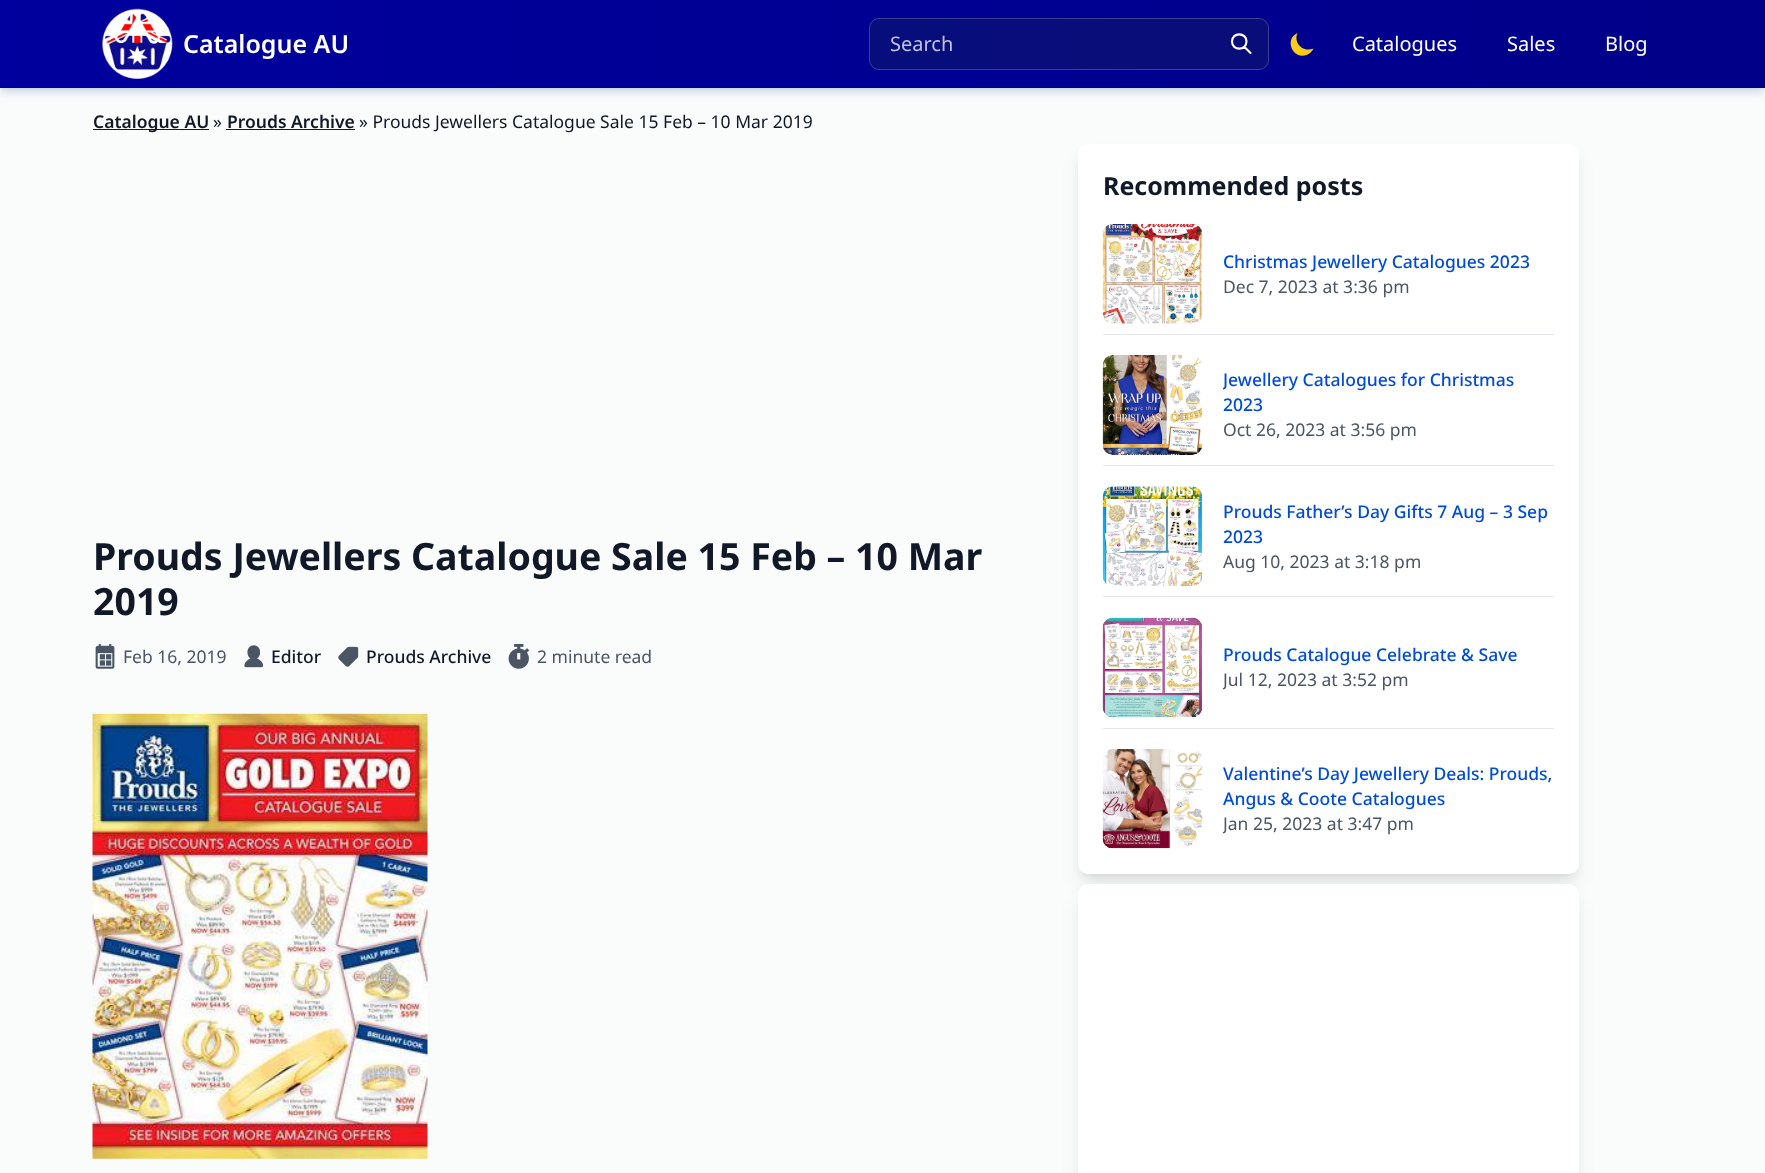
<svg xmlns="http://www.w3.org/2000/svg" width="1765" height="1173">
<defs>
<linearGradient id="g1" gradientUnits="userSpaceOnUse" x1="0" y1="44" x2="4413" y2="44"><stop offset="0" stop-color="#00009e"/><stop offset="0.5" stop-color="#000083"/><stop offset="1" stop-color="#000069"/></linearGradient>
<clipPath id="clip1"><rect x="1223" y="368" width="331" height="50"/></clipPath>
<clipPath id="clip2"><rect x="1223" y="668" width="295" height="25"/></clipPath>
<clipPath id="clip3"><rect x="1223" y="811" width="331" height="25"/></clipPath>
</defs>
<rect width="100%" height="100%" fill="#fafbfb"/>
<rect x="1" y="4" width="1763" height="85" fill="#0e418c1a" filter="blur(2.5px)"/>
<rect x="1" y="8" width="1763" height="85" fill="#0e418c26" filter="blur(4px)"/>
<rect width="1765" height="88" fill="url(#g1)"/>
<image x="102" y="8" width="71" height="71" href="media/1.png"/>
<text x="183" y="53" style="font-family:Noto Sans;font-size:25px;font-weight:600;fill:#fff">Catalogue AU</text>
<rect x="869" y="18" width="400" height="52" rx="10" fill="#17255459"/>
<rect x="869.5" y="18.5" width="399" height="51" rx="9.5" fill="none" stroke="#ffffff33"/>
<text x="890" y="51" style="font-family:Noto Sans;font-size:20px;fill:#c1c2de">Search</text>
<path d="M1250.5 53l-6-6m2-5.5c0 9.5-14.5 9.5-14.5 0c0-9.5 14.5-9.5 14.5 0z" fill="none" stroke="#fff" stroke-width="2.1" stroke-linecap="round" stroke-linejoin="round"/>
<path d="M1313.5 48.5c-10 4.5-20.5-5.5-16-15.5c-13.5 6-5 27 9 22c3-1 5.5-3.5 7-6.5z" fill="#facc15"/>
<text x="1352" y="51" style="font-family:Noto Sans;font-size:20px;fill:#fff">Catalogues</text>
<text x="1507" y="51" style="font-family:Noto Sans;font-size:20px;fill:#fff">Sales</text>
<text x="1605" y="51" style="font-family:Noto Sans;font-size:20px;fill:#fff">Blog</text>
<rect x="93" y="129" width="116" height="1" fill="#111827"/>
<text x="93" y="128" style="font-family:Noto Sans;font-size:17.5px;font-weight:600;fill:#111827">Catalogue AU</text>
<text x="213" y="128" style="font-family:Noto Sans;font-size:17.5px;fill:#111827">»</text>
<text x="227" y="128" style="font-family:Noto Sans;font-size:17.5px;font-weight:600;fill:#111827">Prouds Archive</text>
<rect x="226" y="129" width="129" height="1" fill="#111827"/>
<text x="359" y="128" style="font-family:Noto Sans;font-size:17.5px;fill:#111827">» Prouds Jewellers Catalogue Sale 15 Feb – 10 Mar 2019</text>
<text x="93" y="570" style="font-family:Noto Sans;font-size:37.5px;font-weight:bold;fill:#111827">Prouds Jewellers Catalogue Sale 15 Feb – 10 Mar</text>
<text x="93" y="615" style="font-family:Noto Sans;font-size:37.5px;font-weight:bold;fill:#111827">2019</text>
<image x="95" y="644" width="20" height="25" href="media/2.png"/>
<text x="123" y="663" style="font-family:Noto Sans;font-size:17.5px;fill:#4b5563">Feb 16, 2019</text>
<image x="244" y="645" width="20" height="23" href="media/3.png"/>
<text x="271" y="663" style="font-family:Noto Sans;font-size:17.5px;font-weight:500;fill:#111827">Editor</text>
<image x="338" y="646" width="21" height="21" href="media/4.png"/>
<text x="366" y="663" style="font-family:Noto Sans;font-size:17.5px;font-weight:500;fill:#111827">Prouds Archive</text>
<image x="508" y="644" width="22" height="25" href="media/5.png"/>
<text x="537" y="663" style="font-family:Noto Sans;font-size:17.5px;fill:#4b5563">2 minute read</text>
<image x="92" y="713" width="336" height="446" href="media/6.png"/>
<rect x="1083" y="154" width="491" height="720" rx="5" fill="#0000001a" filter="blur(4px)"/>
<rect x="1081" y="160" width="494" height="723" rx="6" fill="#0000001a" filter="blur(9.5px)"/>
<rect x="1078" y="144" width="501" height="730" rx="10" fill="#fff"/>
<text x="1103" y="195" style="font-family:Noto Sans;font-size:25px;font-weight:bold;fill:#111827">Recommended posts</text>
<rect x="1103" y="334" width="451" height="1" fill="#e5e7eb"/>
<image x="1102" y="224" width="101" height="100" href="media/7.png"/>
<text x="1223" y="268" style="font-family:Noto Sans;font-size:17.5px;font-weight:500;fill:#004cd7">Christmas Jewellery Catalogues 2023</text>
<text x="1223" y="293" style="font-family:Noto Sans;font-size:17.5px;fill:#4b5563">Dec 7, 2023 at 3:36 pm</text>
<rect x="1103" y="465" width="451" height="1" fill="#e5e7eb"/>
<image x="1102" y="355" width="101" height="100" href="media/8.png"/>
<g clip-path="url(#clip1)">
<text x="1223" y="386" style="font-family:Noto Sans;font-size:17.5px;font-weight:500;fill:#004cd7">Jewellery Catalogues for Christmas</text>
</g>
<text x="1223" y="411" style="font-family:Noto Sans;font-size:17.5px;font-weight:500;fill:#004cd7">2023</text>
<text x="1223" y="436" style="font-family:Noto Sans;font-size:17.5px;fill:#4b5563">Oct 26, 2023 at 3:56 pm</text>
<rect x="1103" y="596" width="451" height="1" fill="#e5e7eb"/>
<image x="1102" y="486" width="100" height="100" href="media/9.png"/>
<text x="1223" y="518" style="font-family:Noto Sans;font-size:17.5px;font-weight:500;fill:#004cd7">Prouds Father’s Day Gifts 7 Aug – 3 Sep</text>
<text x="1223" y="543" style="font-family:Noto Sans;font-size:17.5px;font-weight:500;fill:#004cd7">2023</text>
<text x="1223" y="568" style="font-family:Noto Sans;font-size:17.5px;fill:#4b5563">Aug 10, 2023 at 3:18 pm</text>
<rect x="1103" y="728" width="451" height="1" fill="#e5e7eb"/>
<image x="1102" y="617" width="100" height="101" href="media/10.png"/>
<text x="1223" y="661" style="font-family:Noto Sans;font-size:17.5px;font-weight:500;fill:#004cd7">Prouds Catalogue Celebrate &amp; Save</text>
<g clip-path="url(#clip2)">
<text x="1223" y="686" style="font-family:Noto Sans;font-size:17.5px;fill:#4b5563">Jul 12, 2023 at 3:52 pm</text>
</g>
<image x="1102" y="749" width="101" height="100" href="media/11.png"/>
<text x="1223" y="780" style="font-family:Noto Sans;font-size:17.5px;font-weight:500;fill:#004cd7">Valentine’s Day Jewellery Deals: Prouds,</text>
<text x="1223" y="805" style="font-family:Noto Sans;font-size:17.5px;font-weight:500;fill:#004cd7">Angus &amp; Coote Catalogues</text>
<g clip-path="url(#clip3)">
<text x="1223" y="830" style="font-family:Noto Sans;font-size:17.5px;fill:#4b5563">Jan 25, 2023 at 3:47 pm</text>
</g>
<rect x="1081" y="900" width="494" height="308" rx="6" fill="#0000001a" filter="blur(9.5px)"/>
<rect x="1078" y="884" width="501" height="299" rx="10" fill="#fff"/>
</svg>
